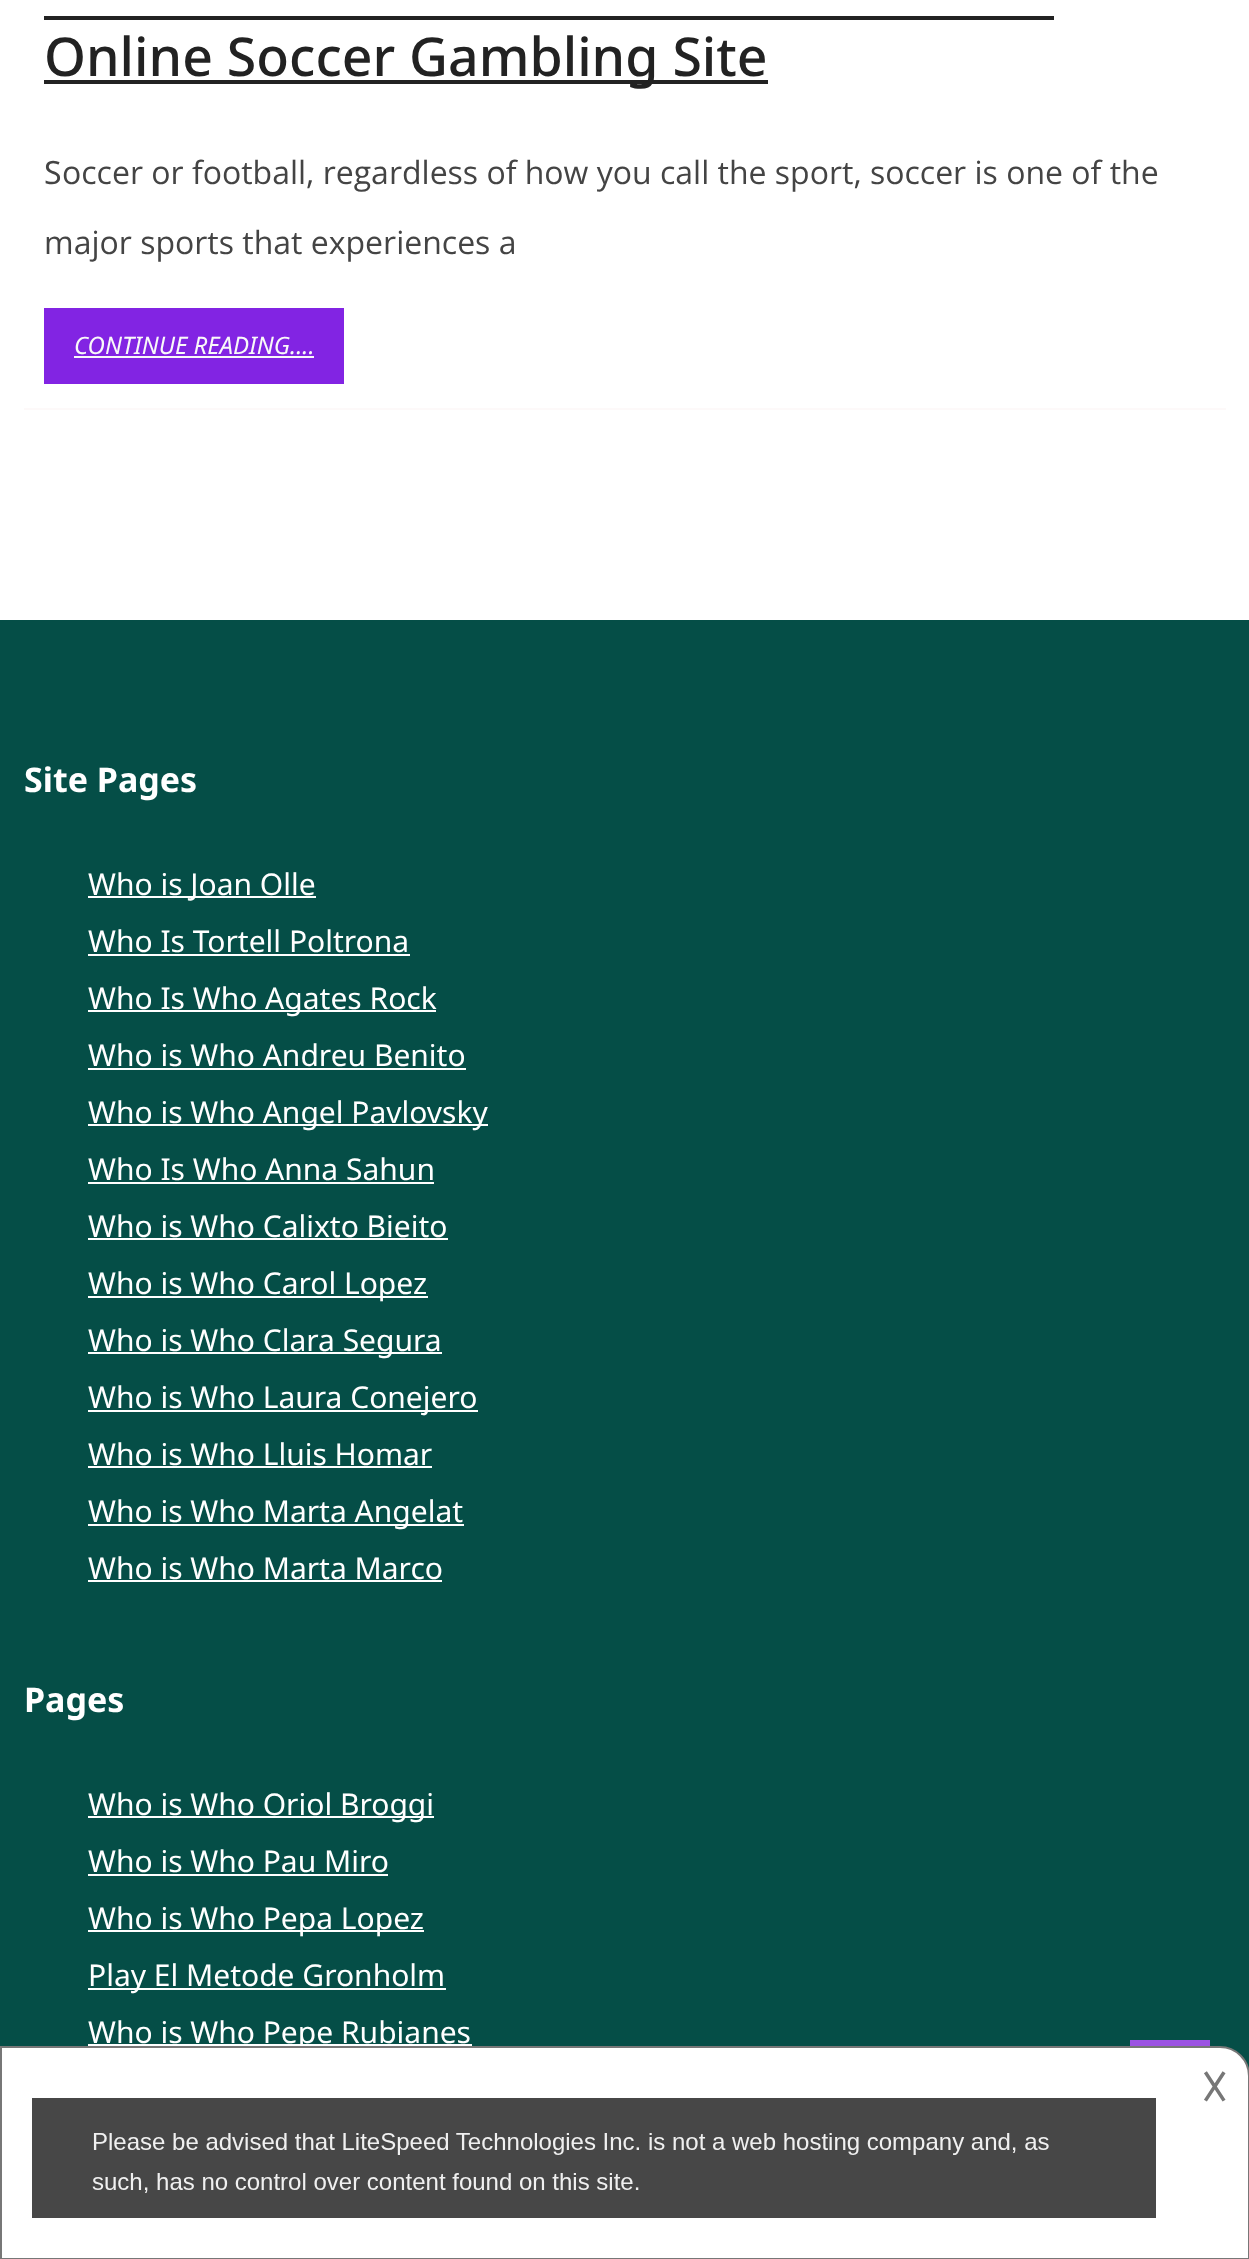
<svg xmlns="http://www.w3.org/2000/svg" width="1249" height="2259">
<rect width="100%" height="100%" fill="#fff"/>
<rect x="24" y="408" width="1202" height="2" fill="#fdf9f9"/>
<rect x="44" y="80" width="724" height="4" fill="#222"/>
<text x="44" y="76" style="font-family:Noto Sans;font-size:53.6px;font-weight:500;fill:#222">Online Soccer Gambling Site</text>
<rect x="44" y="16" width="1010" height="4" fill="#222"/>
<text x="44" y="184" style="font-family:Noto Sans;font-size:32px;fill:#444">S</text>
<text x="62" y="184" style="font-family:Open Sans;font-size:32px;fill:#444">occer or football, regardless of how you call the sport, soccer is one of the</text>
<text x="44" y="254" style="font-family:Open Sans;font-size:32px;fill:#444">major sports that experiences a</text>
<rect x="44" y="308" width="300" height="76" fill="#8224e3"/>
<text x="74" y="354" style="font-family:Noto Sans;font-size:24px;font-style:italic;fill:#f9f9f9">CONTINUE READING....</text>
<rect x="74" y="356" width="240" height="2" fill="#f9f9f9"/>
<rect y="620" width="1249" height="1449" fill="#054e47"/>
<text x="24" y="792" style="font-family:Noto Sans;font-size:34px;font-weight:bold;fill:#fff">Site Pages</text>
<rect x="88" y="896" width="228" height="2" fill="#fff"/>
<text x="88" y="895" style="font-family:Noto Sans;font-size:30px;fill:#fff">Who is Joan Olle</text>
<text x="88" y="952" style="font-family:Noto Sans;font-size:30px;fill:#fff">Who Is Tortell Poltrona</text>
<rect x="88" y="954" width="322" height="2" fill="#fff"/>
<rect x="88" y="1010" width="348" height="2" fill="#fff"/>
<text x="88" y="1009" style="font-family:Noto Sans;font-size:30px;fill:#fff">Who Is Who Agates Rock</text>
<text x="88" y="1066" style="font-family:Noto Sans;font-size:30px;fill:#fff">Who is Who Andreu Benito</text>
<rect x="88" y="1068" width="378" height="2" fill="#fff"/>
<rect x="88" y="1124" width="400" height="2" fill="#fff"/>
<text x="88" y="1123" style="font-family:Noto Sans;font-size:30px;fill:#fff">Who is Who Angel Pavlovsky</text>
<text x="88" y="1180" style="font-family:Noto Sans;font-size:30px;fill:#fff">Who Is Who Anna Sahun</text>
<rect x="88" y="1182" width="346" height="2" fill="#fff"/>
<text x="88" y="1237" style="font-family:Noto Sans;font-size:30px;fill:#fff">Who is Who Calixto Bieito</text>
<rect x="88" y="1238" width="360" height="2" fill="#fff"/>
<rect x="88" y="1296" width="340" height="2" fill="#fff"/>
<text x="88" y="1294" style="font-family:Noto Sans;font-size:30px;fill:#fff">Who is Who Carol Lopez</text>
<rect x="88" y="1352" width="354" height="2" fill="#fff"/>
<text x="88" y="1351" style="font-family:Noto Sans;font-size:30px;fill:#fff">Who is Who Clara Segura</text>
<rect x="88" y="1410" width="390" height="2" fill="#fff"/>
<text x="88" y="1408" style="font-family:Noto Sans;font-size:30px;fill:#fff">Who is Who Laura Conejero</text>
<text x="88" y="1465" style="font-family:Noto Sans;font-size:30px;fill:#fff">Who is Who Lluis Homar</text>
<rect x="88" y="1466" width="344" height="2" fill="#fff"/>
<rect x="88" y="1524" width="376" height="2" fill="#fff"/>
<text x="88" y="1522" style="font-family:Noto Sans;font-size:30px;fill:#fff">Who is Who Marta Angelat</text>
<text x="88" y="1579" style="font-family:Noto Sans;font-size:30px;fill:#fff">Who is Who Marta Marco</text>
<rect x="88" y="1580" width="354" height="2" fill="#fff"/>
<text x="24" y="1712" style="font-family:Noto Sans;font-size:34px;font-weight:bold;fill:#fff">Pages</text>
<rect x="88" y="1816" width="346" height="2" fill="#fff"/>
<text x="88" y="1815" style="font-family:Noto Sans;font-size:30px;fill:#fff">Who is Who Oriol Broggi</text>
<text x="88" y="1872" style="font-family:Noto Sans;font-size:30px;fill:#fff">Who is Who Pau Miro</text>
<rect x="88" y="1874" width="300" height="2" fill="#fff"/>
<rect x="88" y="1930" width="336" height="2" fill="#fff"/>
<text x="88" y="1929" style="font-family:Noto Sans;font-size:30px;fill:#fff">Who is Who Pepa Lopez</text>
<rect x="88" y="1988" width="358" height="2" fill="#fff"/>
<text x="88" y="1986" style="font-family:Noto Sans;font-size:30px;fill:#fff">Play El Metode Gronholm</text>
<rect x="88" y="2044" width="384" height="2" fill="#fff"/>
<text x="88" y="2043" style="font-family:Noto Sans;font-size:30px;fill:#fff">Who is Who Pepe Rubianes</text>
<rect x="1130" y="2040" width="80" height="6" fill="#9b53e2"/>
<path d="M1 2047h1219c16 0 29 13 29 29v183h-1248z" fill="#fff" stroke="#777" stroke-width="2"/>
<text x="1201" y="2101" style="font-family:DejaVu Sans;font-size:40px;fill:#777">𐌢</text>
<image x="32" y="2098" width="1124" height="120" href="media/1.png"/>
</svg>
